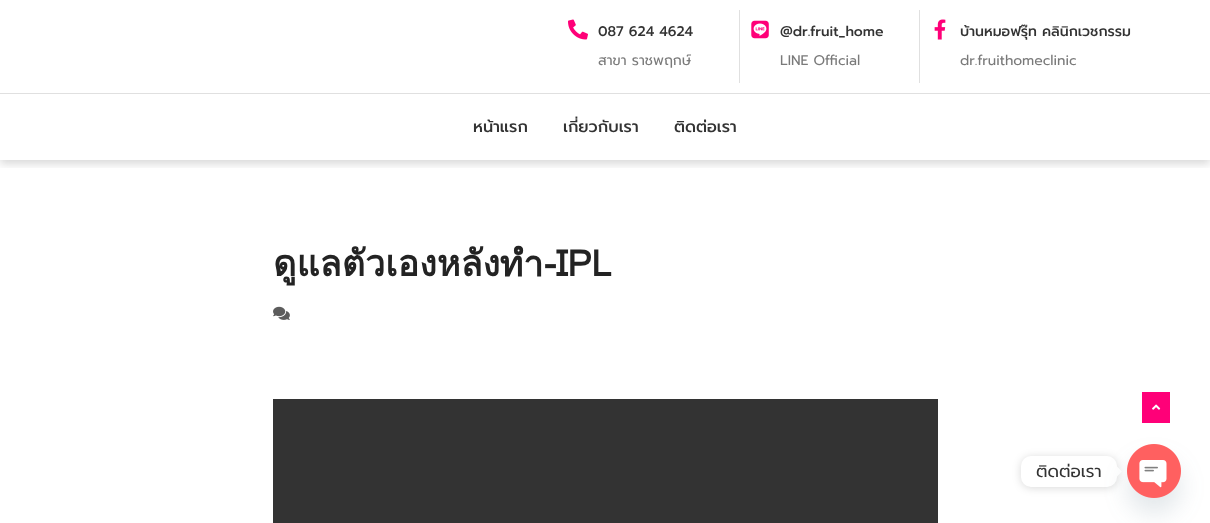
<svg xmlns="http://www.w3.org/2000/svg" width="1210" height="523">
<defs>
<clipPath id="clip1"><rect x="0" y="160" width="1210" height="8"/></clipPath>
</defs>
<rect width="100%" height="100%" fill="#fff"/>
<rect y="93" width="1210" height="1" fill="#e0e0e0"/>
<rect x="739" y="10" width="1" height="73" fill="#e0e0e0"/>
<image x="568" y="19" width="20" height="21" href="media/1.png"/>
<text x="598" y="36" style="font-family:Prompt;font-size:14px;font-weight:500;fill:#333">087 624 4624</text>
<text x="598" y="65" style="font-family:Prompt;font-size:14px;fill:#7a7a7a">สาขา ราชพฤกษ์</text>
<rect x="919" y="10" width="1" height="73" fill="#e0e0e0"/>
<image x="751" y="20" width="18" height="19" href="media/2.png"/>
<text x="780" y="36" style="font-family:Prompt;font-size:14px;font-weight:500;fill:#333">@dr.fruit_home</text>
<text x="780" y="65" style="font-family:Prompt;font-size:14px;fill:#7a7a7a">LINE Official</text>
<image x="934" y="19" width="12" height="21" href="media/3.png"/>
<text x="960" y="36" style="font-family:Prompt;font-size:14px;font-weight:500;fill:#333">บ้านหมอฟรุ๊ท คลินิกเวชกรรม</text>
<text x="960" y="65" style="font-family:Prompt;font-size:14px;fill:#7a7a7a">dr.fruithomeclinic</text>
<g clip-path="url(#clip1)">
<rect y="98" width="1210" height="66" fill="#00000026" filter="blur(4px)"/>
</g>
<text x="473" y="132" style="font-family:Prompt;font-size:16px;font-weight:500;fill:#333">หน้าแรก</text>
<text x="563" y="132" style="font-family:Prompt;font-size:16px;font-weight:500;fill:#333">เกี่ยวกับเรา</text>
<text x="674" y="132" style="font-family:Prompt;font-size:16px;font-weight:500;fill:#333">ติดต่อเรา</text>
<text x="273" y="276" style="font-family:Loma;font-size:36px;font-weight:bold;fill:#232323">ดูแลตัวเองหลังทำ-IPL</text>
<image x="273" y="306" width="17" height="14" href="media/4.png"/>
<rect x="273" y="399" width="665" height="124" fill="#333"/>
<rect x="1142" y="392" width="28" height="31" fill="#ff0078"/>
<image x="1152" y="404" width="9" height="6" href="media/5.png"/>
<rect x="1021" y="457" width="96" height="31" rx="10" fill="#00000026" filter="blur(4px)"/>
<rect x="1021" y="456" width="96" height="31" rx="10" fill="#fff"/>
<text x="1036" y="477" style="font-family:Prompt;font-size:17px;fill:#333">ติดต่อเรา</text>
<path d="M1117 476.5v-10l5 5z" fill="#fff"/>
<rect x="1127" y="460" width="54" height="54" rx="27" fill="#49687e29" filter="blur(12px)"/>
<image x="1127" y="444" width="54" height="54" href="media/6.png"/>
</svg>
